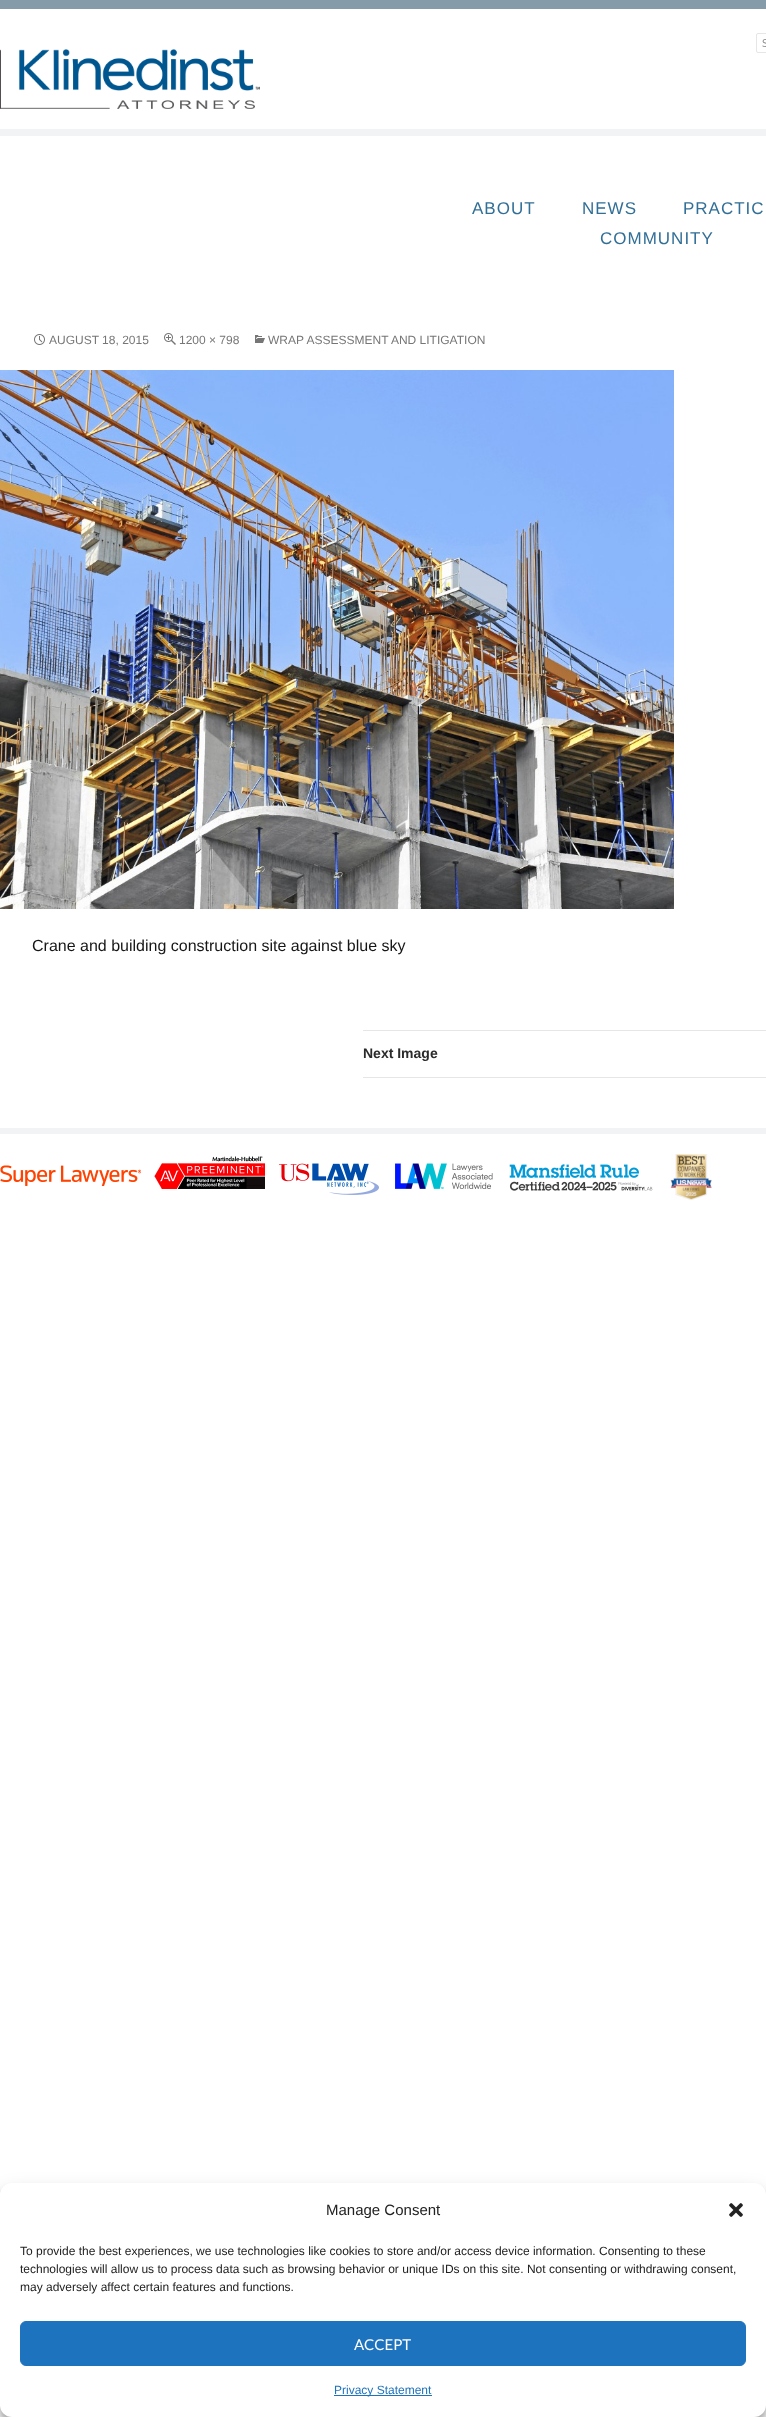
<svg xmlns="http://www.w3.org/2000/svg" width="766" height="2417">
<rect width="100%" height="100%" fill="#fff"/>
<rect width="766" height="9" fill="#869ba9"/>
<rect x="756.5" y="33.5" width="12" height="19" rx="1.5" fill="none" stroke="#e6e6e6"/>
<text x="762" y="47" style="font-family:Lato;font-size:11px;fill:#939393">S</text>
<rect y="129" width="766" height="7" fill="#f1f3f5"/>
<image x="0" y="49" width="260" height="60" href="media/1.png"/>
<text x="472" y="214" style="font-family:Liberation Sans;font-size:17px;letter-spacing:1px;fill:#326f97">ABOUT</text>
<text x="582" y="214" style="font-family:Liberation Sans;font-size:17px;letter-spacing:1px;fill:#326f97">NEWS</text>
<text x="683" y="214" style="font-family:Liberation Sans;font-size:17px;letter-spacing:1px;fill:#326f97">PRACTIC</text>
<text x="600" y="244" style="font-family:Liberation Sans;font-size:17px;letter-spacing:1px;fill:#326f97">COMMUNITY</text>
<image x="34" y="334" width="11" height="11" href="media/2.png"/>
<text x="49" y="344" style="font-family:Liberation Sans;font-size:12px;fill:#767676">AUGUST 18, 2015</text>
<image x="164" y="333" width="12" height="12" href="media/3.png"/>
<text x="179" y="344" style="font-family:Liberation Sans;font-size:12px;fill:#767676">1200 × 798</text>
<image x="255" y="335" width="10" height="8" href="media/4.png"/>
<text x="268" y="344" style="font-family:Liberation Sans;font-size:12px;fill:#767676">WRAP ASSESSMENT AND LITIGATION</text>
<image x="0" y="370" width="674" height="539" href="media/5.png"/>
<text x="32" y="951" style="font-family:Liberation Sans;font-size:16px;fill:#161616">Crane and building construction site against blue sky</text>
<rect x="363" y="1030" width="403" height="1" fill="#e6e6e6"/>
<rect x="363" y="1077" width="403" height="1" fill="#e6e6e6"/>
<text x="363" y="1058" style="font-family:Liberation Sans;font-size:14px;font-weight:bold;fill:#2b2b2b">Next Image</text>
<image x="0" y="1154" width="712" height="46" href="media/6.png"/>
<rect y="1128" width="766" height="6" fill="#f1f3f5"/>
<rect y="2189" width="766" height="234" rx="12" fill="#0000003b" filter="blur(3px)"/>
<rect y="2193" width="766" height="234" rx="12" fill="#00000030" filter="blur(10px)"/>
<rect y="2183" width="766" height="234" rx="12" fill="#fff"/>
<text x="326" y="2215" style="font-family:Liberation Sans;font-size:15px;fill:#222">Manage Consent</text>
<image x="729" y="2203" width="14" height="14" href="media/7.png"/>
<text x="20" y="2255" style="font-family:Liberation Sans;font-size:12px;fill:#222">To provide the best experiences, we use technologies like cookies to store and/or access device information. Consenting to these</text>
<text x="20" y="2273" style="font-family:Liberation Sans;font-size:12px;fill:#222">technologies will allow us to process data such as browsing behavior or unique IDs on this site. Not consenting or withdrawing consent,</text>
<text x="20" y="2291" style="font-family:Liberation Sans;font-size:12px;fill:#222">may adversely affect certain features and functions.</text>
<rect x="20.5" y="2321.5" width="725" height="44" rx="5.5" fill="#1e73be" stroke="#1e73be"/>
<text x="354" y="2350" style="font-family:Lato;font-size:15px;fill:#fff">ACCEPT</text>
<rect x="334" y="2395" width="98" height="1" fill="#1e73be"/>
<text x="334" y="2394" style="font-family:Liberation Sans;font-size:12px;fill:#1e73be">Privacy Statement</text>
</svg>
